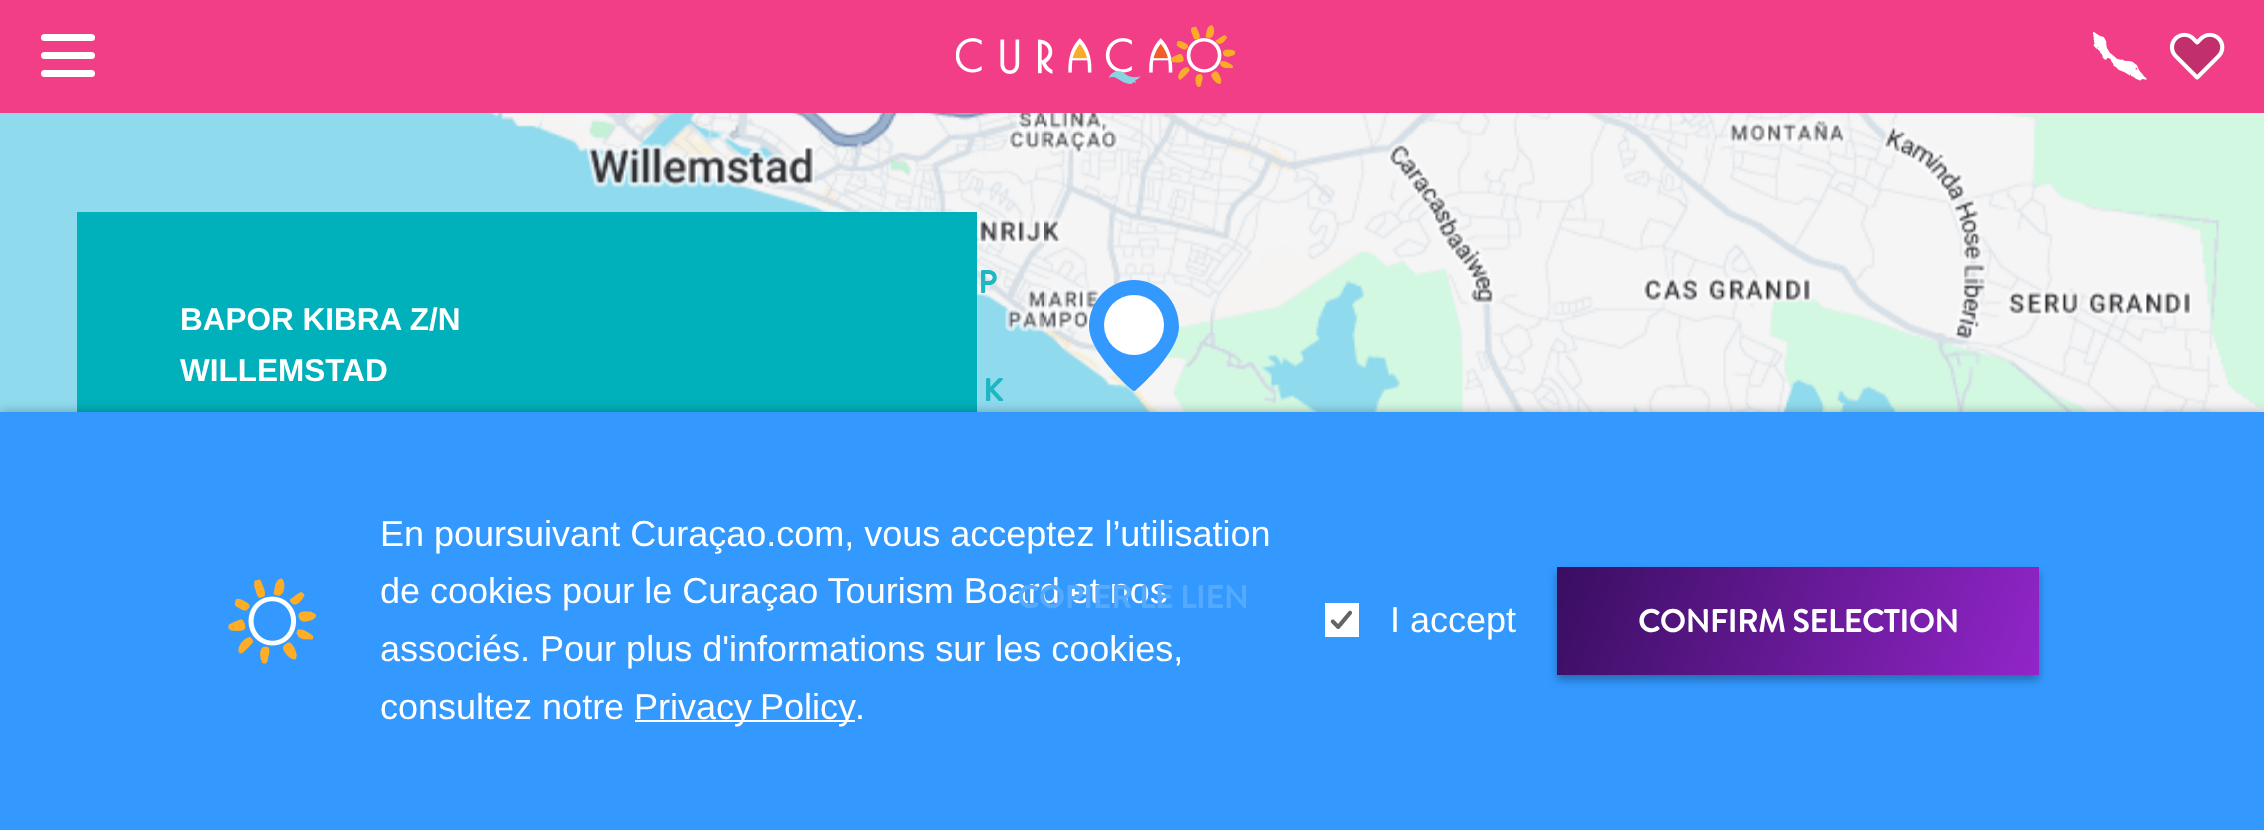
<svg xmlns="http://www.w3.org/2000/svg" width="2264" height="830">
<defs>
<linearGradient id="g1" gradientUnits="userSpaceOnUse" x1="2028" y1="705" x2="1568" y2="537"><stop offset="0" stop-color="#9225c9"/><stop offset="1" stop-color="#390e61"/></linearGradient>
</defs>
<rect width="100%" height="100%" fill="#fff"/>
<rect width="2264" height="113" fill="#f23d87"/>
<rect x="41" y="34" width="54" height="7" rx="3.5" fill="#fff"/>
<rect x="41" y="52" width="54" height="7" rx="3.5" fill="#fff"/>
<rect x="41" y="70" width="54" height="7" rx="3.5" fill="#fff"/>
<image x="956" y="25" width="279" height="62" href="media/1.png"/>
<image x="2093" y="32" width="54" height="49" href="media/2.png"/>
<image x="2169" y="32" width="56" height="48" href="media/3.png"/>
<image x="0" y="113" width="468" height="299" href="media/4.png"/>
<image x="468" y="113" width="576" height="299" href="media/5.png"/>
<image x="1044" y="113" width="576" height="299" href="media/6.png"/>
<image x="1620" y="113" width="576" height="299" href="media/7.png"/>
<image x="2196" y="113" width="68" height="299" href="media/8.png"/>
<rect x="77" y="212" width="900" height="200" fill="#00b0bb"/>
<text x="180" y="330" style="font-family:Liberation Sans;font-size:31.5px;font-weight:bold;fill:#fff">BAPOR KIBRA Z/N</text>
<text x="180" y="381" style="font-family:Liberation Sans;font-size:31.5px;font-weight:bold;fill:#fff">WILLEMSTAD</text>
<path d="M1134 280c-25 0-45 21-45 47c0 24 38 59 42 62c1 1 2 2 3 2c1 0 2-1 3-2c4-3 42-38 42-62c0-26-20-47-45-47" fill="#39f"/>
<circle cx="1134" cy="325" r="30" fill="#fff"/>
<text x="978" y="293" style="font-family:Brandon Grotesque;font-size:31.5px;font-weight:bold;fill:#1cb7c1">P</text>
<rect y="412" width="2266" height="418" fill="#0000004d" filter="blur(5.5px)"/>
<text x="983" y="401" style="font-family:Brandon Grotesque;font-size:31.5px;font-weight:bold;fill:#1cb7c1">K</text>
<rect y="412" width="2264" height="418" fill="#39f"/>
<image x="228" y="578" width="89" height="86" href="media/9.png"/>
<text x="380" y="546" style="font-family:Liberation Sans;font-size:36px;fill:#fff">En poursuivant Curaçao.com, vous acceptez l’utilisation</text>
<text x="380" y="603" style="font-family:Liberation Sans;font-size:36px;fill:#fff">de cookies pour le Curaçao Tourism Board et nos</text>
<text x="380" y="661" style="font-family:Liberation Sans;font-size:36px;fill:#fff">associés. Pour plus d'informations sur les cookies,</text>
<text x="380" y="719" style="font-family:Liberation Sans;font-size:36px;fill:#fff">consultez notre</text>
<rect x="635" y="720" width="220" height="2" fill="#fff"/>
<text x="634" y="719" word-spacing="-2" style="font-family:Liberation Sans;font-size:36px;fill:#fff">Privacy Policy</text>
<text x="855" y="719" style="font-family:Liberation Sans;font-size:36px;fill:#fff">.</text>
<rect x="1325" y="603" width="34" height="34" fill="#fff"/>
<image x="1330" y="610" width="22" height="19" href="media/10.png"/>
<text x="1390" y="632" style="font-family:Liberation Sans;font-size:36px;fill:#fff">I accept</text>
<rect x="1557" y="572" width="482" height="108" fill="#0000004d" filter="blur(4.5px)"/>
<rect x="1557" y="567" width="482" height="108" fill="url(#g1)"/>
<text x="1638" y="632" style="font-family:Brandon Grotesque;font-size:31.5px;font-weight:bold;fill:#fff">CONFIRM SELECTION</text>
<text x="1017" y="608" style="font-family:Brandon Grotesque;font-size:31.5px;font-weight:bold;fill:#5af">COPIER LE LIEN</text>
</svg>
